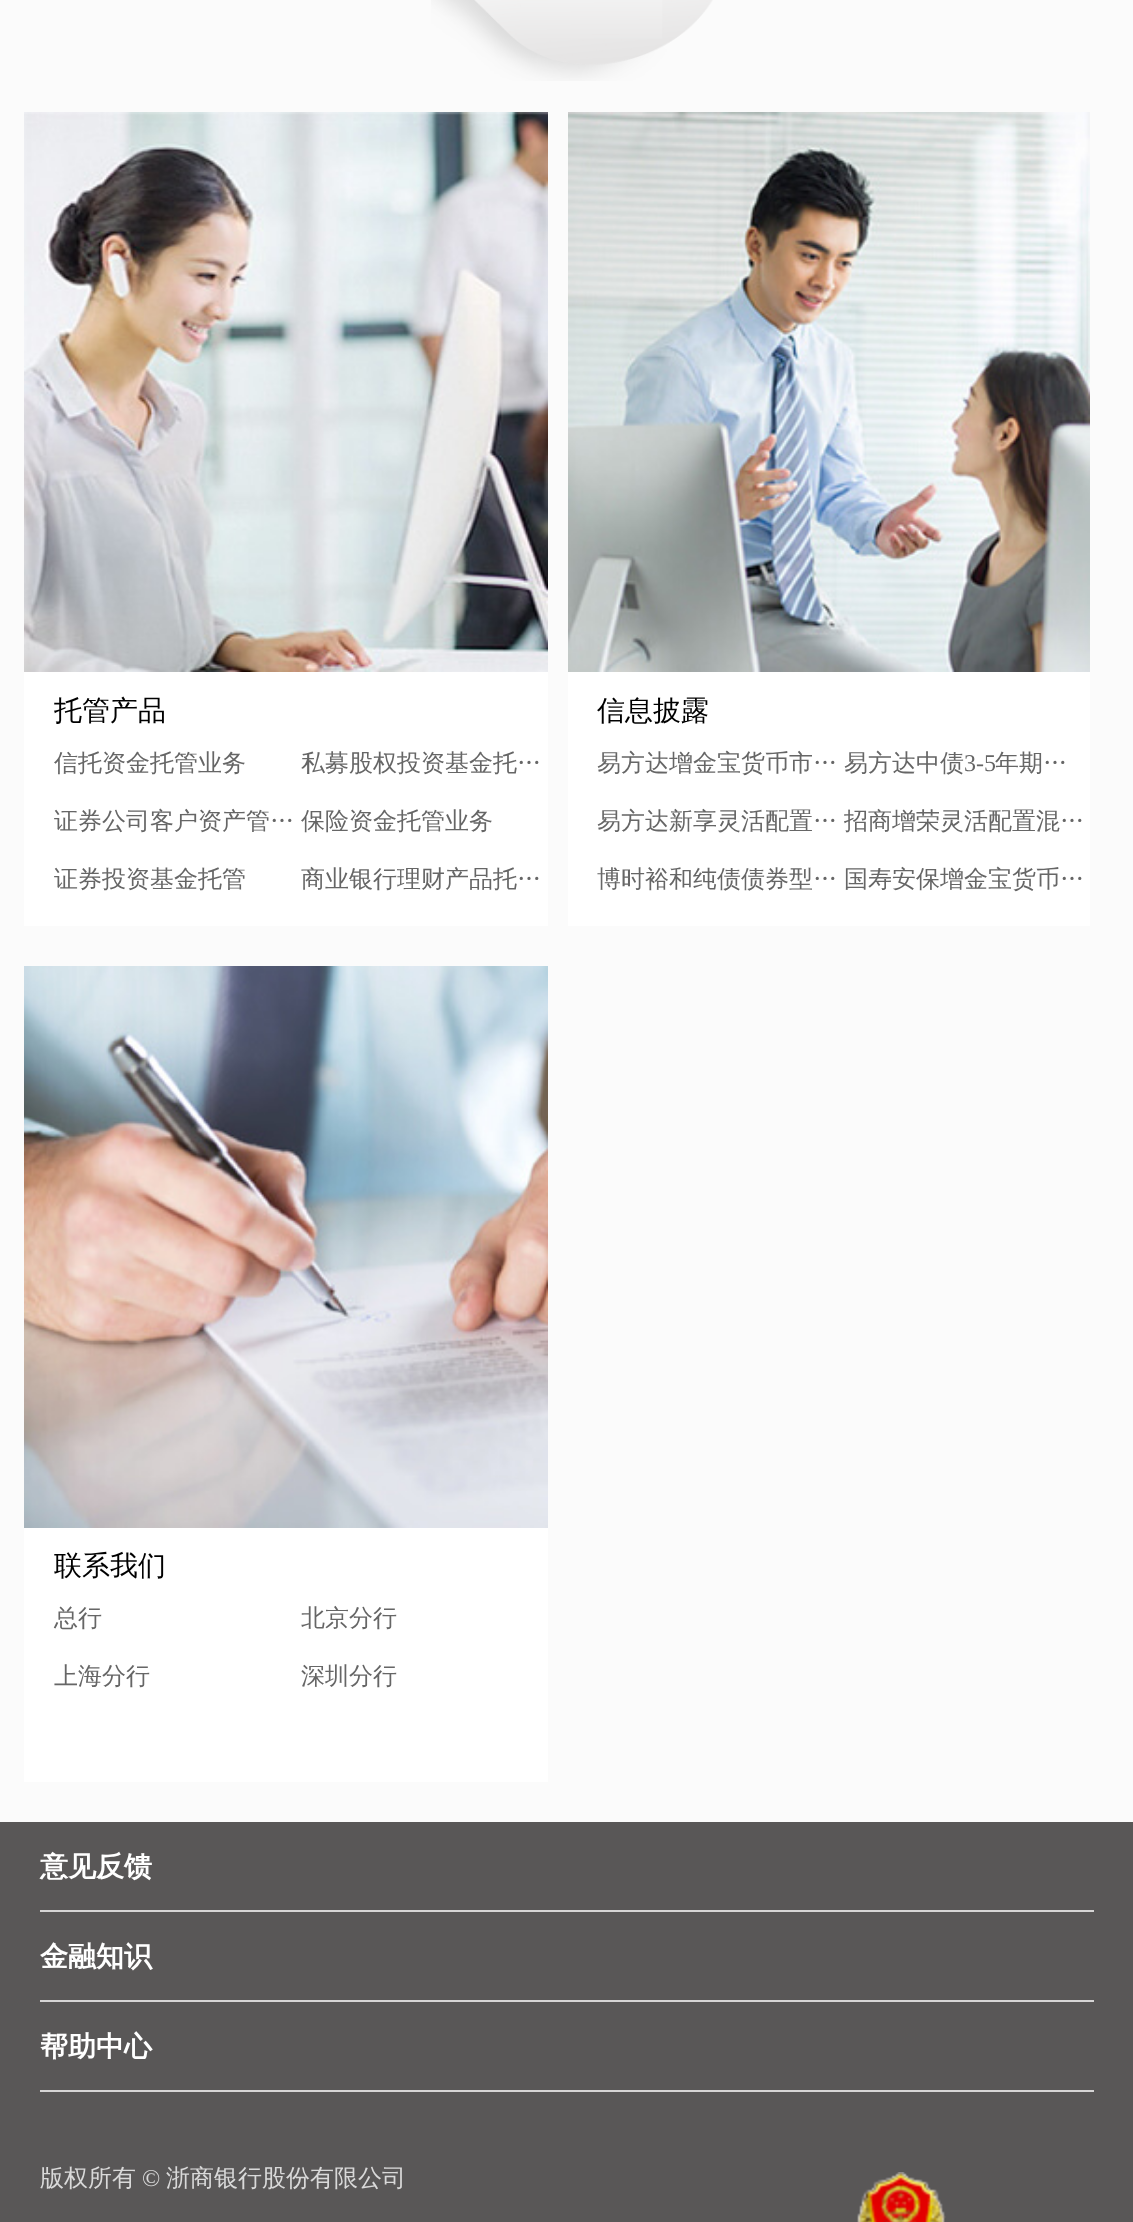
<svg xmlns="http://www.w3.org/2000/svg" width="1133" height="2222">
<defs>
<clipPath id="clip1"><rect x="844" y="796" width="246" height="48"/></clipPath>
</defs>
<rect width="100%" height="100%" fill="#fbfbfb"/>
<image x="431" y="0" width="282" height="81" href="media/1.png"/>
<rect x="24" y="672" width="524" height="254" fill="#fff"/>
<image x="24" y="112" width="524" height="560" href="media/2.png"/>
<text x="54" y="720" style="font-family:WenQuanYi Zen Hei;font-size:28px;font-weight:500;fill:#000">托管产品</text>
<text x="54" y="771" style="font-family:WenQuanYi Zen Hei;font-size:24px;font-weight:500;fill:#666">信托资金托管业务</text>
<text x="301" y="771" style="font-family:WenQuanYi Zen Hei;font-size:24px;font-weight:500;fill:#666">私募股权投资基金托…</text>
<text x="54" y="829" style="font-family:WenQuanYi Zen Hei;font-size:24px;font-weight:500;fill:#666">证券公司客户资产管…</text>
<text x="301" y="829" style="font-family:WenQuanYi Zen Hei;font-size:24px;font-weight:500;fill:#666">保险资金托管业务</text>
<text x="54" y="887" style="font-family:WenQuanYi Zen Hei;font-size:24px;font-weight:500;fill:#666">证券投资基金托管</text>
<text x="301" y="887" style="font-family:WenQuanYi Zen Hei;font-size:24px;font-weight:500;fill:#666">商业银行理财产品托…</text>
<rect x="568" y="672" width="522" height="254" fill="#fff"/>
<image x="568" y="112" width="522" height="560" href="media/3.png"/>
<text x="597" y="720" style="font-family:WenQuanYi Zen Hei;font-size:28px;font-weight:500;fill:#000">信息披露</text>
<text x="597" y="771" style="font-family:WenQuanYi Zen Hei;font-size:24px;font-weight:500;fill:#666">易方达增金宝货币市…</text>
<text x="844" y="771" style="font-family:WenQuanYi Zen Hei;font-size:24px;font-weight:500;fill:#666">易方达中债</text>
<text x="964" y="771" style="font-family:Liberation Serif;font-size:24px;fill:#666">3-5</text>
<text x="995" y="771" style="font-family:WenQuanYi Zen Hei;font-size:24px;font-weight:500;fill:#666">年期…</text>
<text x="597" y="829" style="font-family:WenQuanYi Zen Hei;font-size:24px;font-weight:500;fill:#666">易方达新享灵活配置…</text>
<g clip-path="url(#clip1)">
<text x="844" y="829" style="font-family:WenQuanYi Zen Hei;font-size:24px;font-weight:500;fill:#666">招商增荣灵活配置混…</text>
</g>
<text x="597" y="887" style="font-family:WenQuanYi Zen Hei;font-size:24px;font-weight:500;fill:#666">博时裕和纯债债券型…</text>
<text x="844" y="887" style="font-family:WenQuanYi Zen Hei;font-size:24px;font-weight:500;fill:#666">国寿安保增金宝货币…</text>
<rect x="24" y="1528" width="524" height="254" fill="#fff"/>
<image x="24" y="966" width="524" height="562" href="media/4.png"/>
<text x="54" y="1575" style="font-family:WenQuanYi Zen Hei;font-size:28px;font-weight:500;fill:#000">联系我们</text>
<text x="54" y="1626" style="font-family:WenQuanYi Zen Hei;font-size:24px;font-weight:500;fill:#666">总行</text>
<text x="301" y="1626" style="font-family:WenQuanYi Zen Hei;font-size:24px;font-weight:500;fill:#666">北京分行</text>
<text x="54" y="1684" style="font-family:WenQuanYi Zen Hei;font-size:24px;font-weight:500;fill:#666">上海分行</text>
<text x="301" y="1684" style="font-family:WenQuanYi Zen Hei;font-size:24px;font-weight:500;fill:#666">深圳分行</text>
<rect y="1822" width="1133" height="400" fill="#595757"/>
<rect x="40" y="1910" width="1054" height="2" fill="#d6d5d5"/>
<text x="40" y="1876" style="font-family:WenQuanYi Zen Hei;font-size:28px;font-weight:bold;fill:#fff">意见反馈</text>
<rect x="40" y="2000" width="1054" height="2" fill="#d6d5d5"/>
<text x="40" y="1966" style="font-family:WenQuanYi Zen Hei;font-size:28px;font-weight:bold;fill:#fff">金融知识</text>
<rect x="40" y="2090" width="1054" height="2" fill="#d6d5d5"/>
<text x="40" y="2056" style="font-family:WenQuanYi Zen Hei;font-size:28px;font-weight:bold;fill:#fff">帮助中心</text>
<text x="40" y="2186" style="font-family:WenQuanYi Zen Hei;font-size:24px;font-weight:500;fill:#d9d9d9">版权所有</text>
<text x="142" y="2186" style="font-family:Liberation Serif;font-size:24px;fill:#d9d9d9">©</text>
<text x="166" y="2186" style="font-family:WenQuanYi Zen Hei;font-size:24px;font-weight:500;fill:#d9d9d9">浙商银行股份有限公司</text>
<image x="857" y="2172" width="89" height="50" href="media/5.png"/>
</svg>
